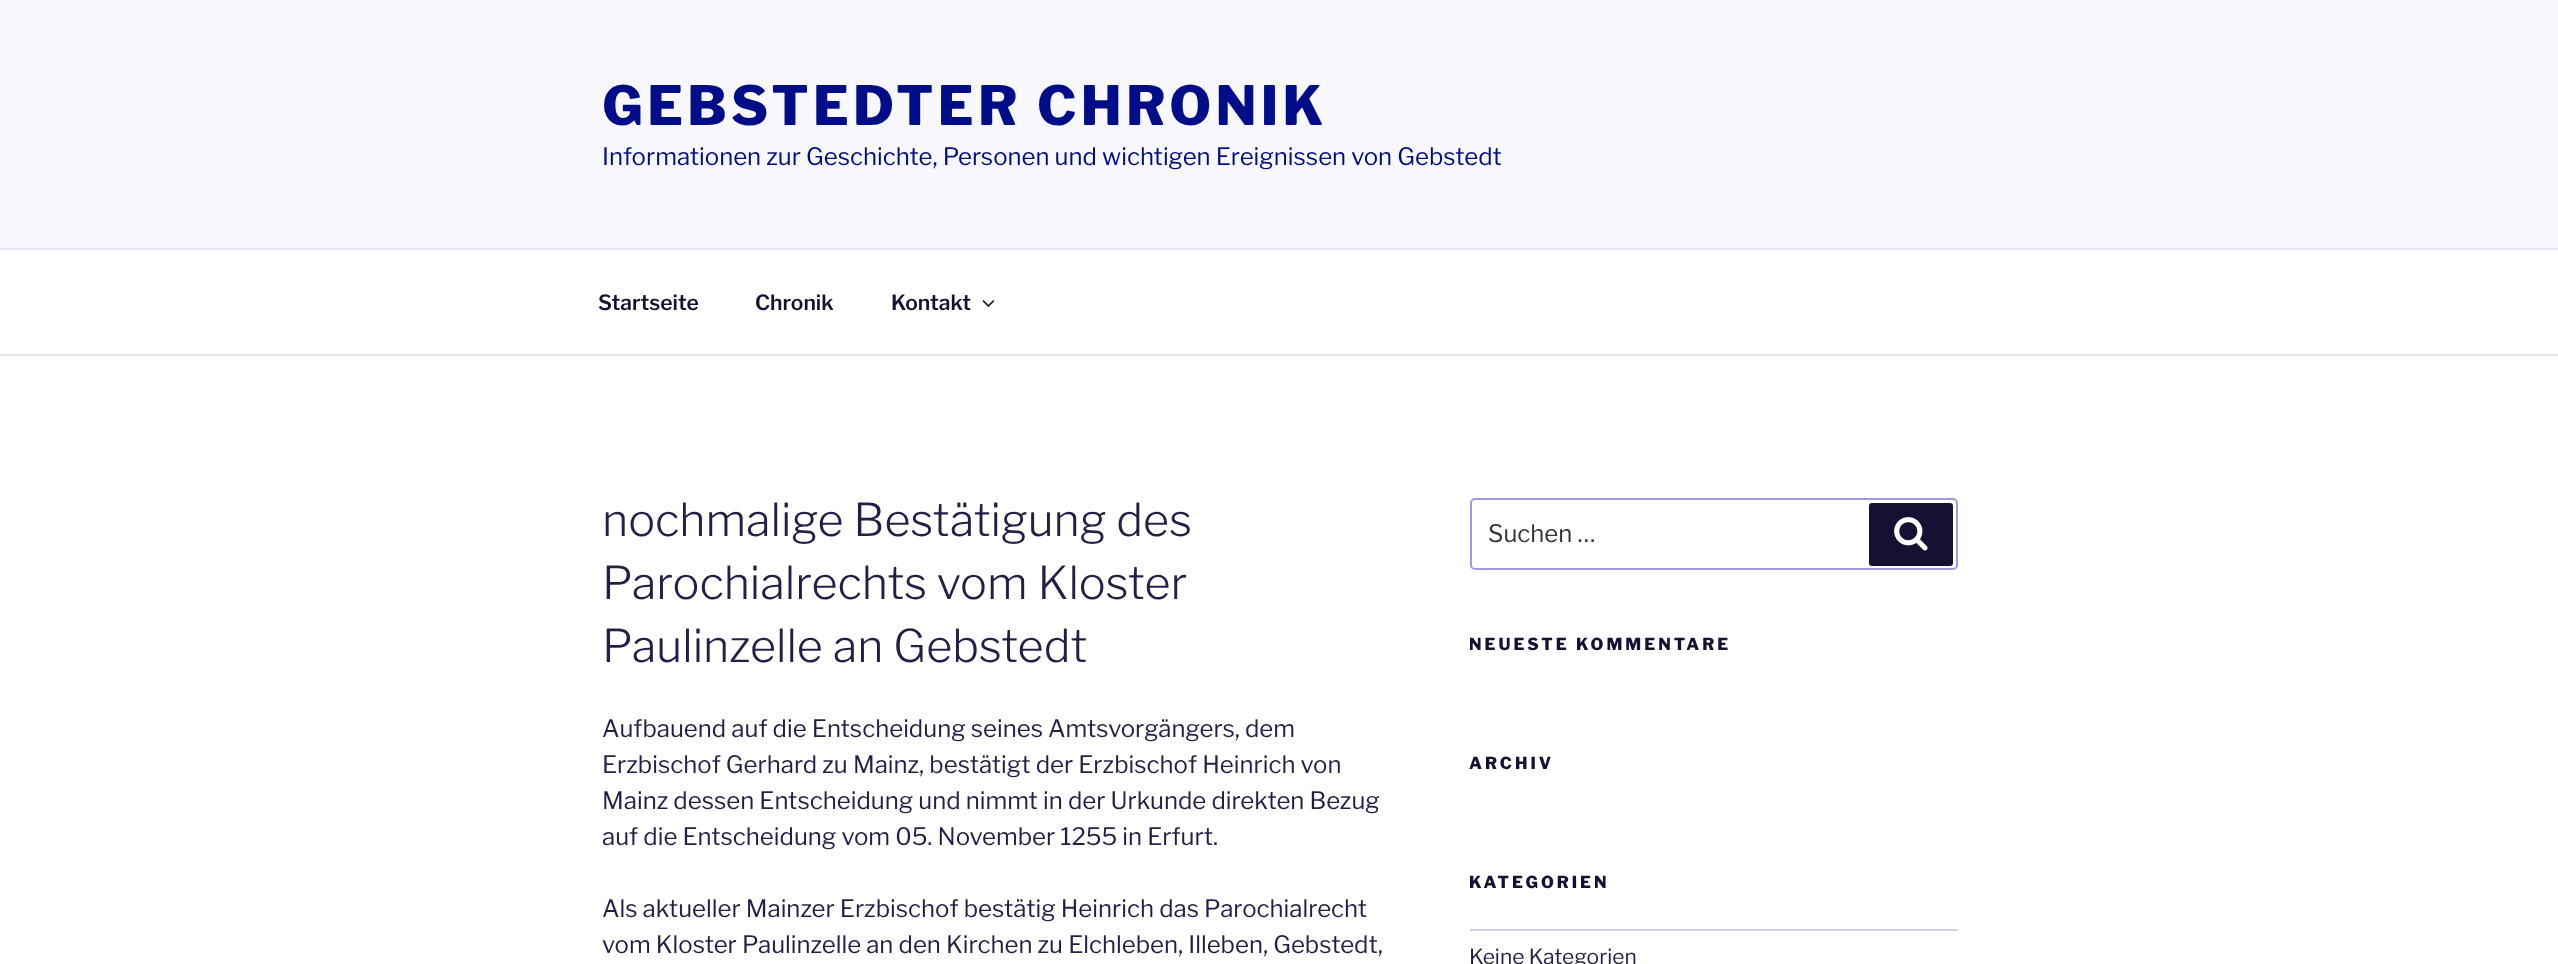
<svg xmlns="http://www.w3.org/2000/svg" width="2558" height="964">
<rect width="100%" height="100%" fill="#fff"/>
<rect width="2558" height="248" fill="#f8f7fc"/>
<text x="602" y="125" style="font-family:Libre Franklin;font-size:54px;font-weight:800;letter-spacing:4.3px;fill:#000d89">GEBSTEDTER CHRONIK</text>
<text x="602" y="165" style="font-family:Libre Franklin;font-size:24px;fill:#000d89">Informationen zur Geschichte, Personen und wichtigen Ereignissen von Gebstedt</text>
<rect y="248" width="2558" height="2" fill="#e7e4f6"/>
<rect y="354" width="2558" height="2" fill="#e7e4f6"/>
<text x="598" y="310" style="font-family:Libre Franklin;font-size:21px;font-weight:600;fill:#161132">Startseite</text>
<text x="755" y="310" style="font-family:Libre Franklin;font-size:21px;font-weight:600;fill:#161132">Chronik</text>
<text x="891" y="310" style="font-family:Libre Franklin;font-size:21px;font-weight:600;fill:#161132">Kontakt</text>
<image x="982" y="300" width="13" height="7" href="media/1.png"/>
<text x="602" y="536" style="font-family:Libre Franklin;font-size:45px;font-weight:300;fill:#251f47">nochmalige Bestätigung des</text>
<text x="602" y="599" style="font-family:Libre Franklin;font-size:45px;font-weight:300;fill:#251f47">Parochialrechts vom Kloster</text>
<text x="602" y="662" style="font-family:Libre Franklin;font-size:45px;font-weight:300;fill:#251f47">Paulinzelle an Gebstedt</text>
<text x="602" y="737" style="font-family:Libre Franklin;font-size:24px;fill:#251f47">Aufbauend auf die Entscheidung seines Amtsvorgängers, dem</text>
<text x="602" y="773" style="font-family:Libre Franklin;font-size:24px;fill:#251f47">Erzbischof Gerhard zu Mainz, bestätigt der Erzbischof Heinrich von</text>
<text x="602" y="809" style="font-family:Libre Franklin;font-size:24px;fill:#251f47">Mainz dessen Entscheidung und nimmt in der Urkunde direkten Bezug</text>
<text x="602" y="845" style="font-family:Libre Franklin;font-size:24px;fill:#251f47">auf die Entscheidung vom 05. November 1255 in Erfurt.</text>
<text x="602" y="917" style="font-family:Libre Franklin;font-size:24px;fill:#251f47">Als aktueller Mainzer Erzbischof bestätig Heinrich das Parochialrecht</text>
<text x="602" y="953" style="font-family:Libre Franklin;font-size:24px;fill:#251f47">vom Kloster Paulinzelle an den Kirchen zu Elchleben, Illeben, Gebstedt,</text>
<rect x="1471" y="499" width="486" height="70" rx="4" fill="none" stroke="#a398dd" stroke-width="2"/>
<text x="1488" y="542" style="font-family:Libre Franklin;font-size:24px;fill:#333">Suchen …</text>
<rect x="1869" y="503" width="84" height="63" rx="3" fill="#161132"/>
<image x="1894" y="517" width="34" height="34" href="media/2.png"/>
<text x="1469" y="650" style="font-family:Libre Franklin;font-size:16.5px;font-weight:800;letter-spacing:3px;fill:#161132">NEUESTE KOMMENTARE</text>
<text x="1469" y="769" style="font-family:Libre Franklin;font-size:16.5px;font-weight:800;letter-spacing:3px;fill:#161132">ARCHIV</text>
<text x="1469" y="888" style="font-family:Libre Franklin;font-size:16.5px;font-weight:800;letter-spacing:3px;fill:#161132">KATEGORIEN</text>
<rect x="1470" y="929" width="488" height="2" fill="#d3cdee"/>
<text x="1469" y="964" style="font-family:Libre Franklin;font-size:21px;fill:#251f47">Keine Kategorien</text>
</svg>
